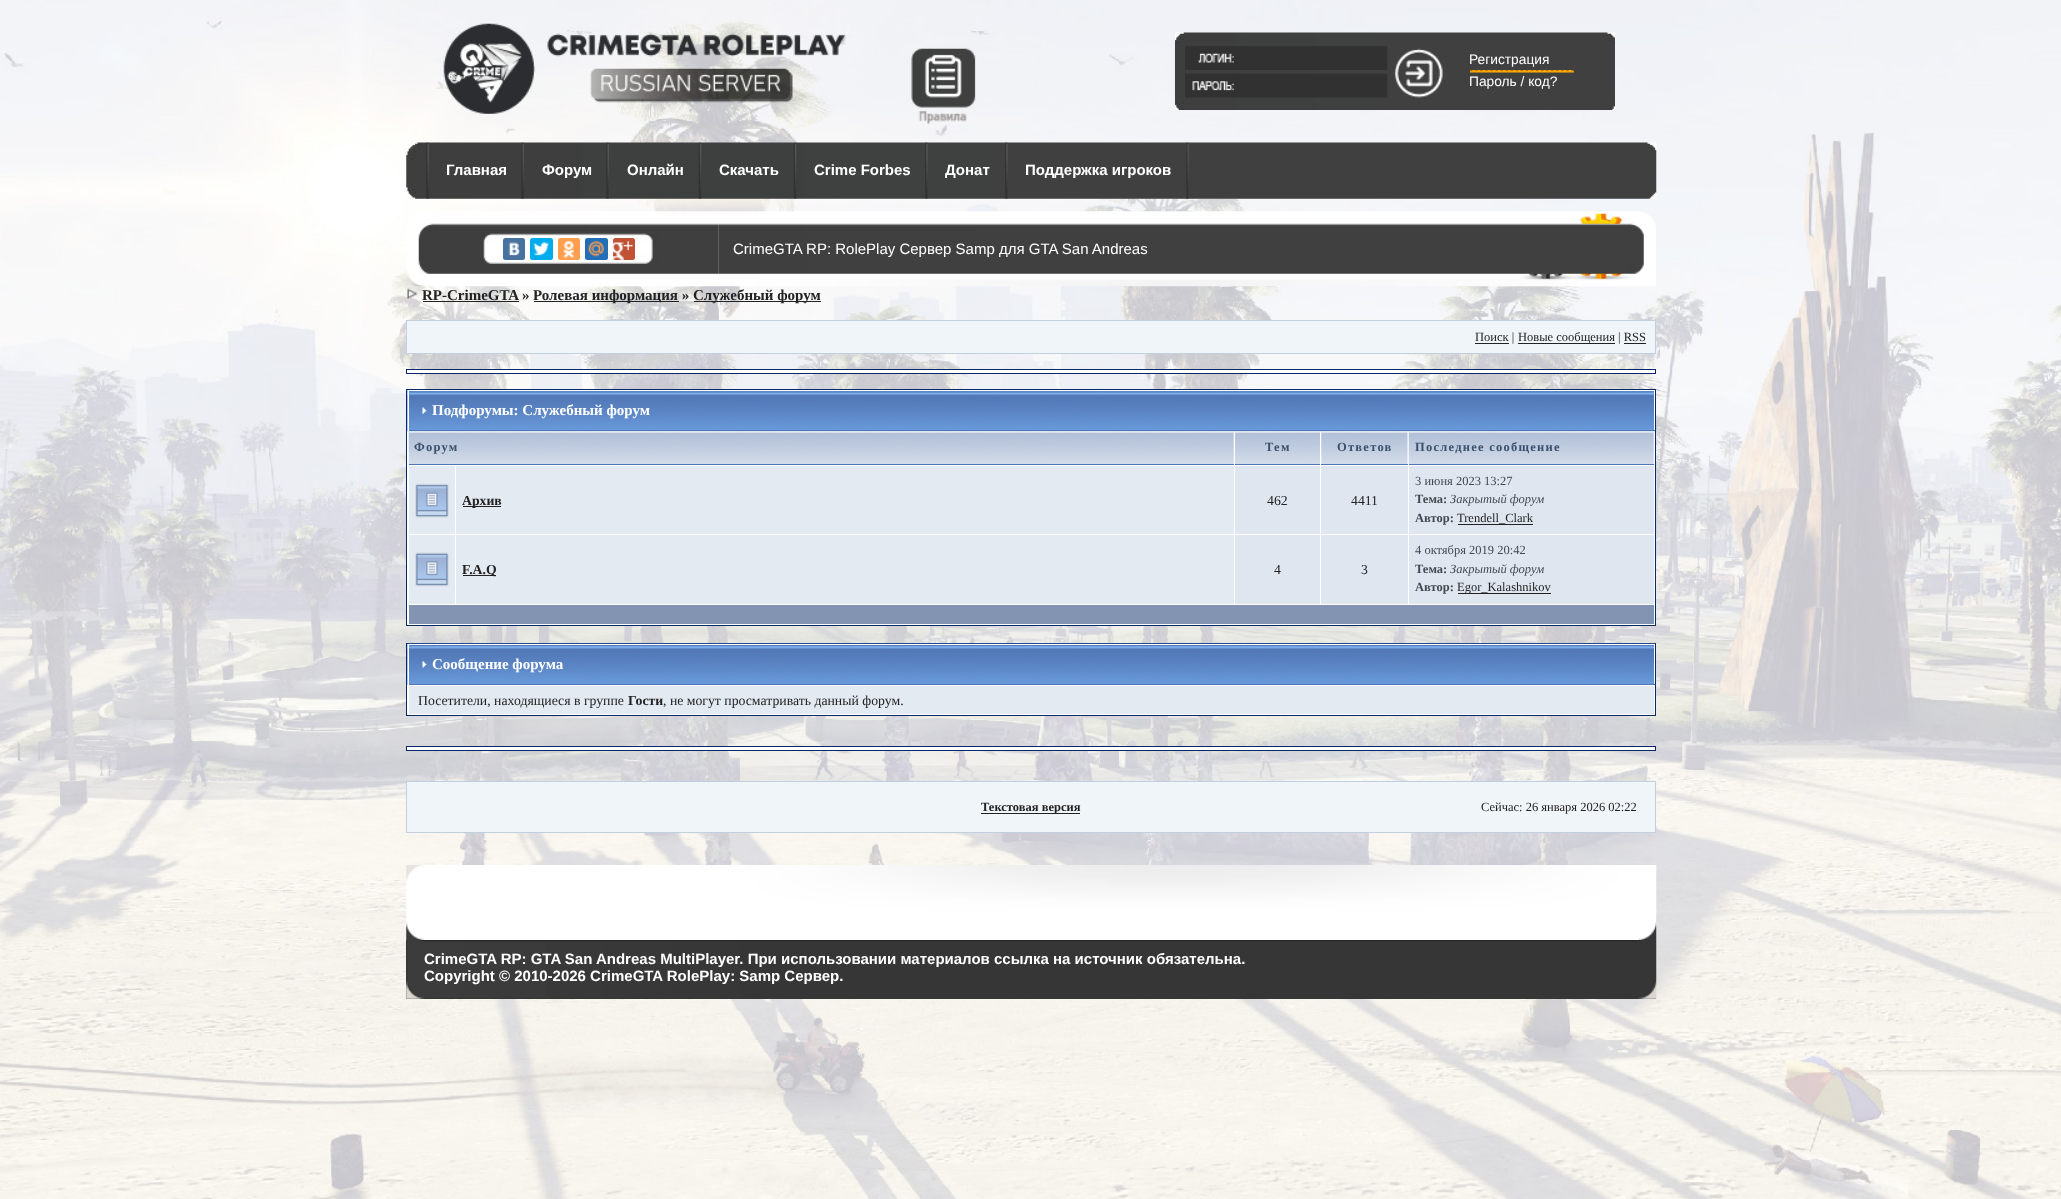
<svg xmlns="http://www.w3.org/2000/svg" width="2061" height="1199">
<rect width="100%" height="100%" fill="#fff"/>
<image x="0" y="0" width="2061" height="1199" href="media/1.png"/>
<image x="443" y="23" width="403" height="91" href="media/2.png"/>
<image x="911" y="48" width="65" height="76" href="media/3.png"/>
<image x="1175" y="32" width="440" height="78" href="media/4.png"/>
<image x="1185" y="46" width="203" height="24" href="media/5.png"/>
<image x="1185" y="73" width="203" height="25" href="media/6.png"/>
<image x="1394" y="48" width="49" height="50" href="media/7.png"/>
<text x="1469" y="64" style="font-family:Liberation Sans;font-size:13.75px;fill:#fff">Регистрация</text>
<image x="1470" y="70" width="104" height="3" href="media/8.png"/>
<text x="1469" y="86" style="font-family:Liberation Sans;font-size:13.75px;fill:#fff">Пароль / код?</text>
<image x="406" y="142" width="1251" height="57" href="media/9.png"/>
<image x="426" y="142" width="3" height="57" href="media/10.png"/>
<image x="521" y="142" width="3" height="57" href="media/11.png"/>
<text x="446" y="175" style="font-family:Liberation Sans;font-size:15px;font-weight:bold;fill:#fff">Главная</text>
<image x="606" y="142" width="3" height="57" href="media/12.png"/>
<text x="542" y="175" style="font-family:Liberation Sans;font-size:15px;font-weight:bold;fill:#fff">Форум</text>
<image x="698" y="142" width="4" height="57" href="media/13.png"/>
<text x="627" y="175" style="font-family:Liberation Sans;font-size:15px;font-weight:bold;fill:#fff">Онлайн</text>
<image x="793" y="142" width="4" height="57" href="media/14.png"/>
<text x="719" y="175" style="font-family:Liberation Sans;font-size:15px;font-weight:bold;fill:#fff">Скачать</text>
<image x="925" y="142" width="3" height="57" href="media/15.png"/>
<text x="814" y="175" style="font-family:Liberation Sans;font-size:15px;font-weight:bold;fill:#fff">Crime Forbes</text>
<image x="1005" y="142" width="3" height="57" href="media/16.png"/>
<text x="945" y="175" style="font-family:Liberation Sans;font-size:15px;font-weight:bold;fill:#fff">Донат</text>
<image x="1186" y="142" width="3" height="57" href="media/17.png"/>
<text x="1025" y="175" style="font-family:Liberation Sans;font-size:15px;font-weight:bold;fill:#fff">Поддержка игроков</text>
<image x="406" y="211" width="1250" height="76" href="media/18.png"/>
<image x="418" y="223" width="301" height="51" href="media/19.png"/>
<rect x="503" y="238" width="22" height="22" rx="2.5" fill="#48729e"/>
<image x="508" y="242" width="13" height="14" href="media/20.png"/>
<rect x="530" y="238" width="23" height="22" rx="2.5" fill="#00aced"/>
<image x="533" y="242" width="16" height="14" href="media/21.png"/>
<rect x="558" y="238" width="22" height="22" rx="2.5" fill="#ff9f4d"/>
<image x="563" y="241" width="11" height="17" href="media/22.png"/>
<rect x="585" y="238" width="23" height="22" rx="2.5" fill="#226eb7"/>
<image x="588" y="241" width="16" height="16" href="media/23.png"/>
<rect x="613" y="238" width="22" height="22" rx="2.5" fill="#c25234"/>
<image x="613" y="241" width="20" height="19" href="media/24.png"/>
<image x="718" y="223" width="926" height="51" href="media/25.png"/>
<text x="733" y="254" style="font-family:Liberation Sans;font-size:15px;fill:#fff">CrimeGTA RP: RolePlay Сервер Samp для GTA San Andreas</text>
<image x="407" y="288" width="11" height="11" href="media/26.png"/>
<text x="422" y="300" style="font-family:Liberation Serif;font-size:15px;font-weight:bold;fill:#222">RP-CrimeGTA</text>
<rect x="423" y="301" width="96" height="1" fill="#222"/>
<text x="522" y="300" style="font-family:Liberation Serif;font-size:15px;font-weight:bold;fill:#222">»</text>
<rect x="534" y="301" width="145" height="1" fill="#222"/>
<text x="533" y="300" style="font-family:Liberation Serif;font-size:15px;font-weight:bold;fill:#222">Ролевая информация »</text>
<rect x="694" y="301" width="127" height="1" fill="#222"/>
<text x="693" y="300" style="font-family:Liberation Serif;font-size:15px;font-weight:bold;fill:#222">Служебный форум</text>
<rect x="406.5" y="320.5" width="1249" height="33" fill="#f0f5fa" stroke="#c2cfdf"/>
<rect x="1475" y="343" width="34" height="1" fill="#222"/>
<text x="1475" y="341" style="font-family:Liberation Serif;font-size:12.5px;fill:#222">Поиск |</text>
<rect x="1518" y="343" width="97" height="1" fill="#222"/>
<text x="1518" y="341" style="font-family:Liberation Serif;font-size:12.5px;fill:#222">Новые сообщения | RSS</text>
<rect x="1624" y="343" width="22" height="1" fill="#222"/>
<rect x="406.5" y="369.5" width="1249" height="4" fill="#fff" stroke="#072a66"/>
<rect x="406.5" y="389.5" width="1249" height="236" fill="#fff" stroke="#072a66"/>
<image x="407" y="390" width="1248" height="42" href="media/27.png"/>
<rect x="408" y="390" width="1247" height="1" fill="#fff"/>
<rect x="1654" y="390" width="1" height="41" fill="#fff"/>
<rect x="408" y="430" width="1247" height="1" fill="#5176b5"/>
<rect x="408" y="390" width="1" height="41" fill="#fff"/>
<image x="422" y="407" width="5" height="7" href="media/28.png"/>
<text x="432" y="415" style="font-family:Liberation Serif;font-size:15px;font-weight:bold;fill:#fff">Подфорумы: Служебный форум</text>
<image x="408" y="432" width="826" height="33" href="media/29.png"/>
<rect x="409" y="464" width="825" height="1" fill="#5176b5"/>
<text x="414" y="451" style="font-family:Liberation Serif;font-size:12.5px;font-weight:bold;letter-spacing:1.25px;fill:#3a4f6c">Форум</text>
<image x="1235" y="432" width="85" height="32" href="media/30.png"/>
<rect x="1235" y="464" width="85" height="1" fill="#5176b5"/>
<text x="1265" y="451" style="font-family:Liberation Serif;font-size:12.5px;font-weight:bold;letter-spacing:1.25px;fill:#3a4f6c">Тем</text>
<image x="1321" y="432" width="87" height="32" href="media/31.png"/>
<rect x="1321" y="464" width="87" height="1" fill="#5176b5"/>
<text x="1337" y="451" style="font-family:Liberation Serif;font-size:12.5px;font-weight:bold;letter-spacing:1.25px;fill:#3a4f6c">Ответов</text>
<image x="1408" y="432" width="246" height="33" href="media/32.png"/>
<rect x="1409" y="464" width="245" height="1" fill="#5176b5"/>
<text x="1415" y="451" style="font-family:Liberation Serif;font-size:12.5px;font-weight:bold;letter-spacing:1.25px;fill:#3a4f6c">Последнее сообщение</text>
<rect x="409" y="466" width="46" height="68" fill="#e4eaf2"/>
<image x="415" y="483" width="34" height="35" href="media/33.png"/>
<rect x="456" y="466" width="778" height="68" fill="#e4eaf2"/>
<rect x="463" y="506" width="38" height="1" fill="#222"/>
<text x="462" y="505" style="font-family:Liberation Serif;font-size:13.75px;font-weight:bold;fill:#222">Архив</text>
<rect x="1235" y="466" width="85" height="68" fill="#dfe6ef"/>
<text x="1267" y="505" style="font-family:Liberation Serif;font-size:13.75px;fill:#222">462</text>
<rect x="1321" y="466" width="87" height="68" fill="#dfe6ef"/>
<text x="1351" y="505" style="font-family:Liberation Serif;font-size:13.75px;fill:#222">4411</text>
<rect x="1409" y="466" width="245" height="68" fill="#dfe6ef"/>
<text x="1415" y="485" style="font-family:Liberation Serif;font-size:12.5px;fill:#434951">3 июня 2023 13:27</text>
<text x="1415" y="503" style="font-family:Liberation Serif;font-size:12.5px;font-weight:bold;fill:#434951">Тема:</text>
<text x="1450" y="503" style="font-family:Liberation Serif;font-size:12.5px;font-style:italic;fill:#434951">Закрытый форум</text>
<text x="1415" y="522" style="font-family:Liberation Serif;font-size:12.5px;font-weight:bold;fill:#434951">Автор:</text>
<text x="1457" y="522" style="font-family:Liberation Serif;font-size:12.5px;fill:#222">Trendell_Clark</text>
<rect x="1458" y="524" width="75" height="1" fill="#222"/>
<rect x="409" y="535" width="46" height="69" fill="#e4eaf2"/>
<image x="415" y="552" width="34" height="35" href="media/34.png"/>
<rect x="456" y="535" width="778" height="69" fill="#e4eaf2"/>
<rect x="463" y="575" width="33" height="1" fill="#222"/>
<text x="462" y="574" style="font-family:Liberation Serif;font-size:13.75px;font-weight:bold;fill:#222">F.A.Q</text>
<rect x="1235" y="535" width="85" height="69" fill="#dfe6ef"/>
<text x="1274" y="574" style="font-family:Liberation Serif;font-size:13.75px;fill:#222">4</text>
<rect x="1321" y="535" width="87" height="69" fill="#dfe6ef"/>
<text x="1361" y="574" style="font-family:Liberation Serif;font-size:13.75px;fill:#222">3</text>
<rect x="1409" y="535" width="245" height="69" fill="#dfe6ef"/>
<text x="1415" y="554" style="font-family:Liberation Serif;font-size:12.5px;fill:#434951">4 октября 2019 20:42</text>
<text x="1415" y="573" style="font-family:Liberation Serif;font-size:12.5px;font-weight:bold;fill:#434951">Тема:</text>
<text x="1450" y="573" style="font-family:Liberation Serif;font-size:12.5px;font-style:italic;fill:#434951">Закрытый форум</text>
<text x="1415" y="591" style="font-family:Liberation Serif;font-size:12.5px;font-weight:bold;fill:#434951">Автор:</text>
<rect x="1458" y="593" width="93" height="1" fill="#222"/>
<text x="1457" y="591" style="font-family:Liberation Serif;font-size:12.5px;fill:#222">Egor_Kalashnikov</text>
<rect x="409" y="605" width="1245" height="19" fill="#8394b2"/>
<rect x="406.5" y="643.5" width="1249" height="72" fill="#fff" stroke="#072a66"/>
<image x="407" y="643" width="1248" height="42" href="media/35.png"/>
<rect x="408" y="644" width="1247" height="1" fill="#fff"/>
<rect x="1654" y="644" width="1" height="41" fill="#fff"/>
<rect x="408" y="684" width="1247" height="1" fill="#5176b5"/>
<rect x="408" y="644" width="1" height="41" fill="#fff"/>
<image x="422" y="661" width="5" height="7" href="media/36.png"/>
<text x="432" y="669" style="font-family:Liberation Serif;font-size:15px;font-weight:bold;fill:#fff">Сообщение форума</text>
<rect x="409" y="686" width="1245" height="28" fill="#e4eaf2"/>
<text x="418" y="705" style="font-family:Liberation Serif;font-size:13.75px;fill:#222">Посетители, находящиеся в группе</text>
<text x="628" y="705" style="font-family:Liberation Serif;font-size:13.75px;font-weight:bold;fill:#222">Гости</text>
<text x="663" y="705" style="font-family:Liberation Serif;font-size:13.75px;fill:#222">, не могут просматривать данный форум.</text>
<rect x="406.5" y="746.5" width="1249" height="4" fill="#fff" stroke="#072a66"/>
<rect x="406.5" y="781.5" width="1249" height="51" fill="#f0f5fa" stroke="#c2cfdf"/>
<rect x="981" y="813" width="99" height="1" fill="#222"/>
<text x="981" y="811" style="font-family:Liberation Serif;font-size:12.5px;font-weight:bold;fill:#222">Текстовая версия</text>
<text x="1481" y="811" style="font-family:Liberation Serif;font-size:12.5px;fill:#222">Сейчас: 26 января 2026 02:22</text>
<image x="406" y="865" width="1251" height="75" href="media/37.png"/>
<rect x="406" y="940" width="1250" height="59" fill="#393939"/>
<image x="406" y="940" width="1251" height="59" href="media/38.png"/>
<text x="424" y="964" style="font-family:Liberation Sans;font-size:15px;font-weight:bold;fill:#fff">CrimeGTA RP: GTA San Andreas MultiPlayer. При использовании материалов ссылка на источник обязательна.</text>
<text x="424" y="981" style="font-family:Liberation Sans;font-size:15px;font-weight:bold;fill:#fff">Copyright © 2010-2026 CrimeGTA RolePlay: Samp Сервер.</text>
</svg>
